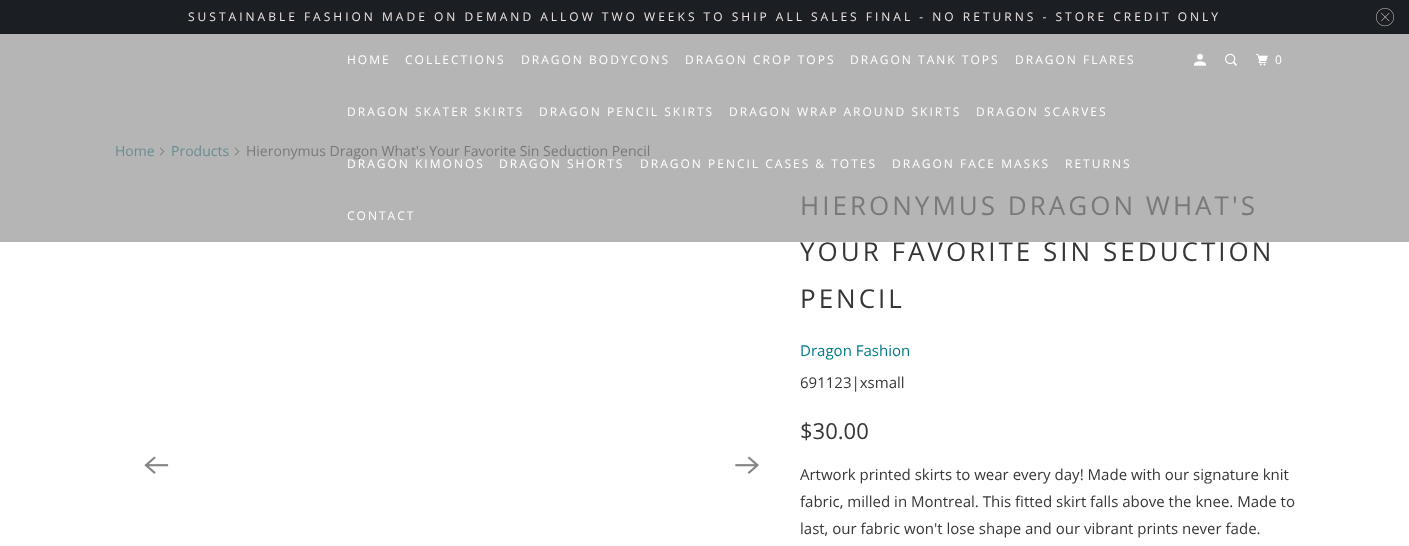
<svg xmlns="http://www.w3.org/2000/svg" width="1409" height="546">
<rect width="100%" height="100%" fill="#fff"/>
<rect y="34" width="1409" height="208" fill="#b5b5b5"/>
<rect width="1409" height="34" fill="#1b1f23"/>
<text x="188" y="21" style="font-family:Open Sans;font-size:12px;letter-spacing:3px;fill:#f0e5e5">SUSTAINABLE FASHION MADE ON DEMAND ALLOW TWO WEEKS TO SHIP ALL SALES FINAL - NO RETURNS - STORE CREDIT ONLY</text>
<image x="1376" y="8" width="18" height="19" href="media/1.png"/>
<text x="347" y="64" style="font-family:Open Sans;font-size:12px;letter-spacing:2px;fill:#fff">HOME</text>
<text x="405" y="64" style="font-family:Open Sans;font-size:12px;letter-spacing:2px;fill:#fff">COLLECTIONS</text>
<text x="521" y="64" style="font-family:Open Sans;font-size:12px;letter-spacing:2px;fill:#fff">DRAGON BODYCONS</text>
<text x="685" y="64" style="font-family:Open Sans;font-size:12px;letter-spacing:2px;fill:#fff">DRAGON CROP TOPS</text>
<text x="850" y="64" style="font-family:Open Sans;font-size:12px;letter-spacing:2px;fill:#fff">DRAGON TANK TOPS</text>
<text x="1015" y="64" style="font-family:Open Sans;font-size:12px;letter-spacing:2px;fill:#fff">DRAGON FLARES</text>
<text x="347" y="116" style="font-family:Open Sans;font-size:12px;letter-spacing:2px;fill:#fff">DRAGON SKATER SKIRTS</text>
<text x="539" y="116" style="font-family:Open Sans;font-size:12px;letter-spacing:2px;fill:#fff">DRAGON PENCIL SKIRTS</text>
<text x="729" y="116" style="font-family:Open Sans;font-size:12px;letter-spacing:2px;fill:#fff">DRAGON WRAP AROUND SKIRTS</text>
<text x="976" y="116" style="font-family:Open Sans;font-size:12px;letter-spacing:2px;fill:#fff">DRAGON SCARVES</text>
<text x="347" y="168" style="font-family:Open Sans;font-size:12px;letter-spacing:2px;fill:#fff">DRAGON KIMONOS</text>
<text x="499" y="168" style="font-family:Open Sans;font-size:12px;letter-spacing:2px;fill:#fff">DRAGON SHORTS</text>
<text x="640" y="168" style="font-family:Open Sans;font-size:12px;letter-spacing:2px;fill:#fff">DRAGON PENCIL CASES &amp; TOTES</text>
<text x="892" y="168" style="font-family:Open Sans;font-size:12px;letter-spacing:2px;fill:#fff">DRAGON FACE MASKS</text>
<text x="1065" y="168" style="font-family:Open Sans;font-size:12px;letter-spacing:2px;fill:#fff">RETURNS</text>
<text x="347" y="220" style="font-family:Open Sans;font-size:12px;letter-spacing:2px;fill:#fff">CONTACT</text>
<image x="1194" y="53" width="12" height="13" href="media/2.png"/>
<image x="1225" y="53" width="12" height="13" href="media/3.png"/>
<image x="1256" y="54" width="12" height="12" href="media/4.png"/>
<text x="1275" y="64" style="font-family:Open Sans;font-size:12px;letter-spacing:2px;fill:#fff">0</text>
<text x="115" y="156" style="font-family:Open Sans;font-size:14px;fill:#688d91">Home</text>
<image x="159" y="147" width="6" height="9" href="media/5.png"/>
<text x="171" y="156" style="font-family:Open Sans;font-size:14px;fill:#688d91">Products</text>
<image x="234" y="147" width="6" height="9" href="media/5.png"/>
<text x="246" y="156" style="font-family:Open Sans;font-size:14px;fill:#797979">Hieronymus Dragon What's Your Favorite Sin Seduction Pencil</text>
<image x="144" y="456" width="25" height="18" href="media/6.png"/>
<image x="735" y="456" width="24" height="18" href="media/7.png"/>
<text x="800" y="215" style="font-family:Open Sans;font-size:26px;letter-spacing:3px;fill:#797979">HIERONYMUS DRAGON WHAT'S</text>
<text x="800" y="261" style="font-family:Open Sans;font-size:26px;letter-spacing:3px;fill:#363636">YOUR FAVORITE SIN SEDUCTION</text>
<text x="800" y="308" style="font-family:Open Sans;font-size:26px;letter-spacing:3px;fill:#363636">PENCIL</text>
<text x="800" y="356" style="font-family:Open Sans;font-size:15px;fill:#007a87">Dragon Fashion</text>
<text x="800" y="388" style="font-family:Open Sans;font-size:15px;fill:#363636">691123|xsmall</text>
<text x="800" y="439" style="font-family:Open Sans;font-size:22px;fill:#363636">$30.00</text>
<text x="800" y="480" style="font-family:Open Sans;font-size:15px;fill:#363636">Artwork printed skirts to wear every day! Made with our signature knit</text>
<text x="800" y="507" style="font-family:Open Sans;font-size:15px;fill:#363636">fabric, milled in Montreal. This fitted skirt falls above the knee. Made to</text>
<text x="800" y="534" style="font-family:Open Sans;font-size:15px;fill:#363636">last, our fabric won't lose shape and our vibrant prints never fade.</text>
</svg>
